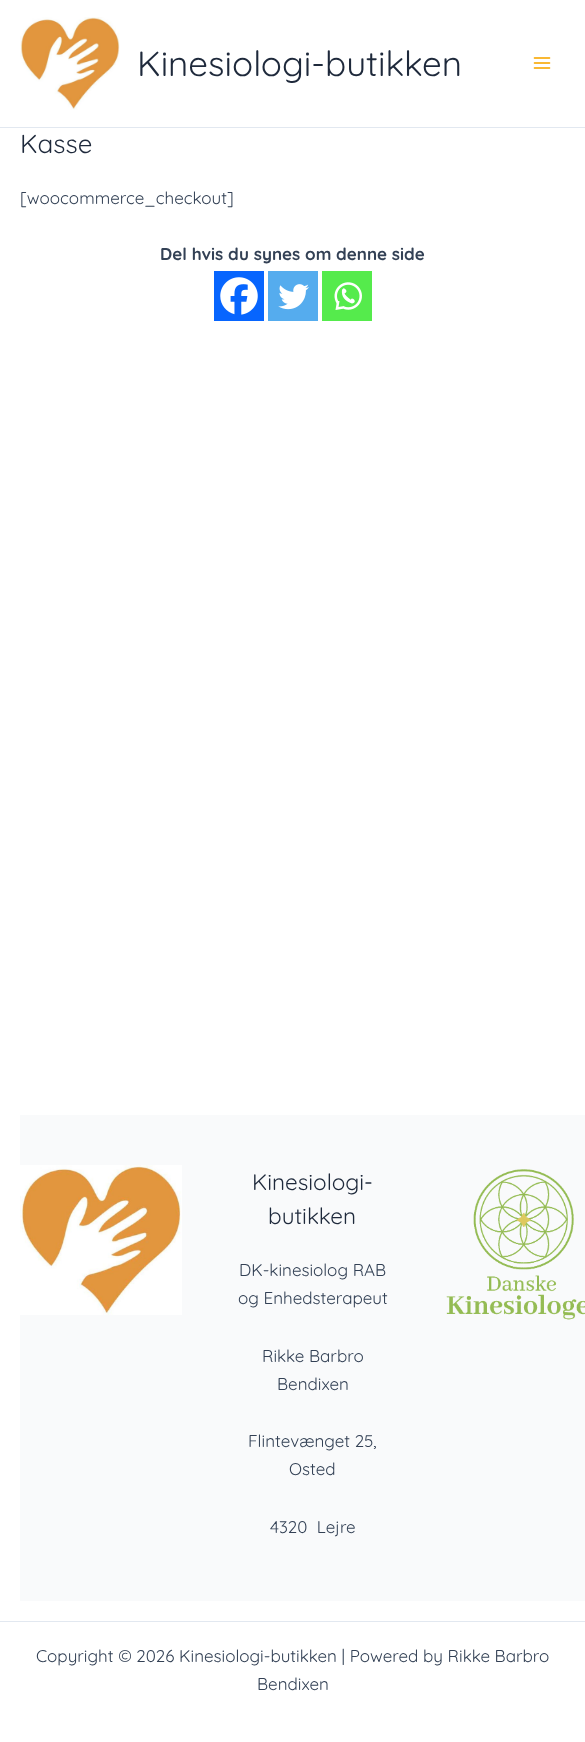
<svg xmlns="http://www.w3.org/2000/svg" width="585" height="1742">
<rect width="100%" height="100%" fill="#fff"/>
<rect y="127" width="585" height="1" fill="#e2e8f0"/>
<image x="20" y="17" width="100" height="93" href="media/1.png"/>
<text x="137" y="76" style="font-family:Quicksand;font-size:35px;fill:#1e293b">Kinesiologi-butikken</text>
<image x="533" y="57" width="18" height="12" href="media/2.png"/>
<text x="20" y="153" style="font-family:Quicksand;font-size:26px;fill:#1e293b">Kasse</text>
<text x="20" y="204" style="font-family:Quicksand;font-size:17px;fill:#334155">[woocommerce_checkout]</text>
<text x="160" y="260" style="font-family:Quicksand;font-size:17px;font-weight:bold;fill:#334155">Del hvis du synes om denne side</text>
<rect x="214" y="271" width="50" height="50" fill="#0765fe"/>
<image x="220" y="277" width="38" height="38" href="media/3.png"/>
<rect x="268" y="271" width="50" height="50" fill="#55acee"/>
<image x="278" y="284" width="31" height="26" href="media/4.png"/>
<rect x="322" y="271" width="50" height="50" fill="#55eb4c"/>
<image x="334" y="282" width="28" height="28" href="media/5.png"/>
<rect x="20" y="1115" width="565" height="486" fill="#f9fafb"/>
<image x="20" y="1165" width="162" height="150" href="media/6.png"/>
<text x="252" y="1190" style="font-family:Quicksand;font-size:22.5px;fill:#1e293b">Kinesiologi-</text>
<text x="268" y="1224" style="font-family:Quicksand;font-size:22.5px;fill:#1e293b">butikken</text>
<text x="239" y="1276" style="font-family:Quicksand;font-size:17px;fill:#334155">DK-kinesiolog RAB</text>
<text x="238" y="1304" style="font-family:Quicksand;font-size:17px;fill:#334155">og Enhedsterapeut</text>
<text x="262" y="1362" style="font-family:Quicksand;font-size:17px;fill:#334155">Rikke Barbro</text>
<text x="277" y="1390" style="font-family:Quicksand;font-size:17px;fill:#334155">Bendixen</text>
<text x="248" y="1447" style="font-family:Quicksand;font-size:17px;fill:#334155">Flintevænget 25,</text>
<text x="289" y="1475" style="font-family:Quicksand;font-size:17px;fill:#334155">Osted</text>
<text x="270" y="1533" style="font-family:Quicksand;font-size:17px;fill:#334155" xml:space="preserve">4320  Lejre</text>
<image x="446" y="1169" width="139" height="151" href="media/7.png"/>
<rect y="1621" width="585" height="1" fill="#e2e8f0"/>
<text x="36" y="1662" style="font-family:Quicksand;font-size:17px;fill:#334155">Copyright © 2026 Kinesiologi-butikken | Powered by Rikke Barbro</text>
<text x="257" y="1690" style="font-family:Quicksand;font-size:17px;fill:#334155">Bendixen</text>
</svg>
